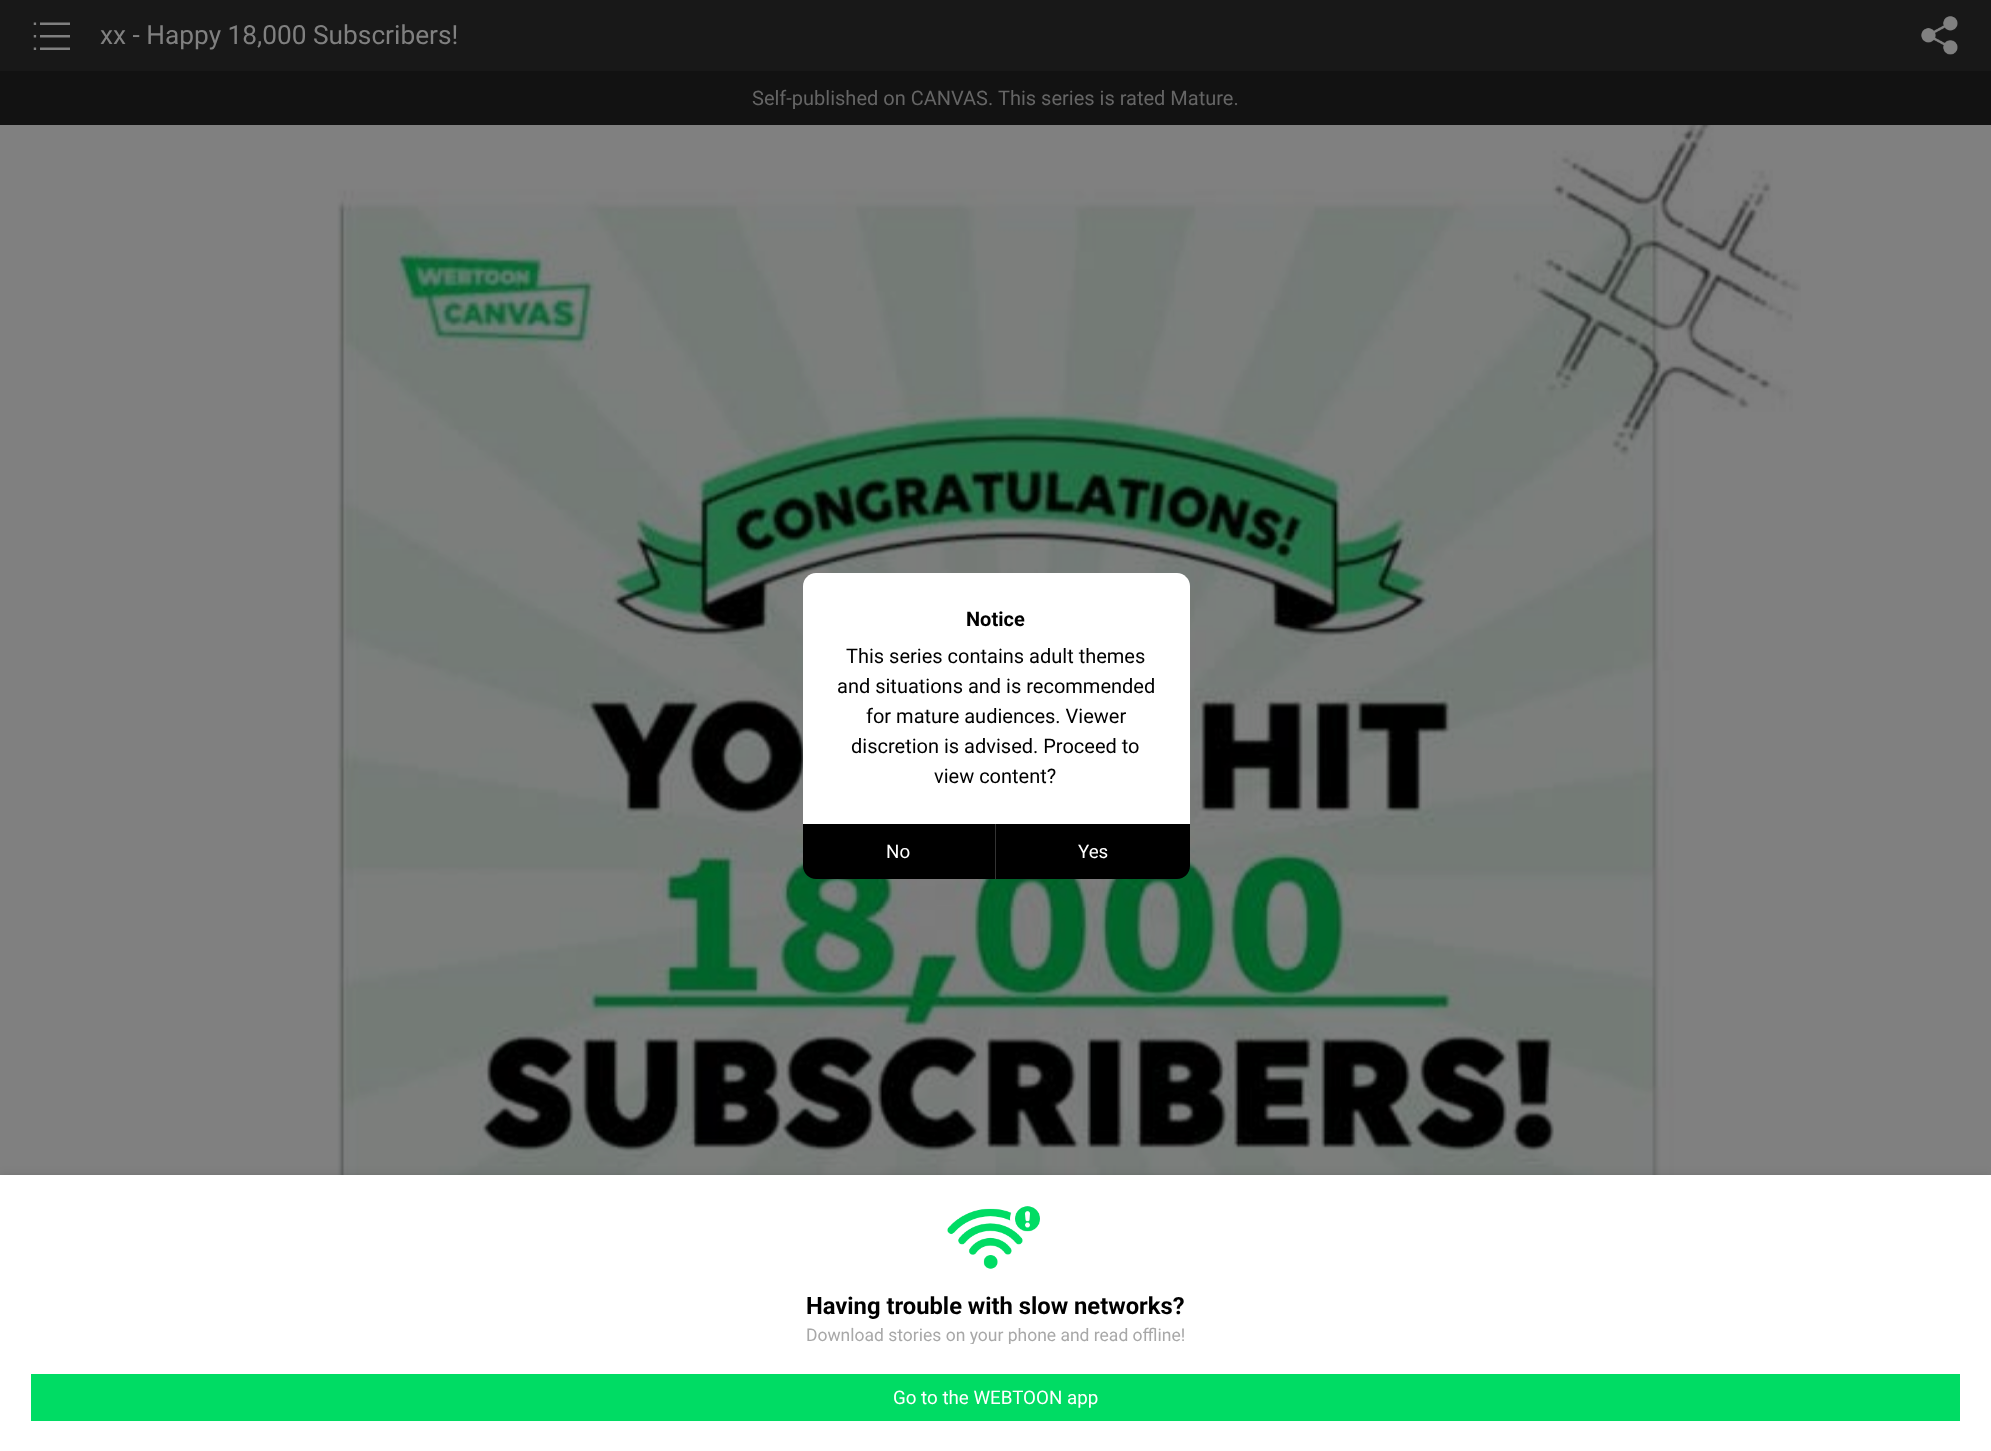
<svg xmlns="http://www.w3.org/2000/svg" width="1991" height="1451">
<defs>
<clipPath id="clip1"><rect x="31" y="1326" width="1929" height="18"/></clipPath>
</defs>
<rect width="100%" height="100%" fill="#808080"/>
<rect width="1991" height="71" fill="#181818"/>
<image x="33" y="22" width="37" height="28" href="media/1.png"/>
<text x="100" y="44" style="font-family:Roboto;font-size:26.25px;fill:#808080">xx - Happy 18,000 Subscribers!</text>
<image x="1921" y="16" width="37" height="39" href="media/2.png"/>
<rect y="71" width="1991" height="54" fill="#121212"/>
<text x="752" y="105" style="font-family:Roboto;font-size:20px;fill:#656565">Self-published on CANVAS.</text>
<text x="998" y="105" style="font-family:Roboto;font-size:20px;fill:#656565">This series is rated Mature.</text>
<image x="337" y="125" width="1464" height="1050" href="media/3.png"/>
<path d="M816 573h361c7 0 13 6 13 13v238h-387v-238c0-7 6-13 13-13z" fill="#fff"/>
<text x="966" y="626" style="font-family:Roboto;font-size:20px;font-weight:bold;fill:#000">Notice</text>
<text x="846" y="663" style="font-family:Roboto;font-size:20px;fill:#000">This series contains adult themes</text>
<text x="837" y="693" style="font-family:Roboto;font-size:20px;fill:#000">and situations and is recommended</text>
<text x="866" y="723" style="font-family:Roboto;font-size:20px;fill:#000">for mature audiences. Viewer</text>
<text x="851" y="753" style="font-family:Roboto;font-size:20px;fill:#000">discretion is advised. Proceed to</text>
<text x="934" y="783" style="font-family:Roboto;font-size:20px;fill:#000">view content?</text>
<path d="M803 824h387v42c0 7-6 13-13 13h-361c-7 0-13-6-13-13z" fill="#000"/>
<text x="886" y="858" style="font-family:Roboto;font-size:18.75px;fill:#fff">No</text>
<rect x="995" y="824" width="1" height="55" fill="#333"/>
<text x="1078" y="858" style="font-family:Roboto;font-size:18.75px;fill:#fff">Yes</text>
<rect y="1178" width="1991" height="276" fill="#00000033" filter="blur(6px)"/>
<rect y="1175" width="1991" height="276" fill="#fff"/>
<image x="947" y="1206" width="93" height="63" href="media/4.png"/>
<text x="806" y="1314" style="font-family:Roboto;font-size:23.75px;font-weight:bold;fill:#000">Having trouble with slow networks?</text>
<g clip-path="url(#clip1)">
<text x="806" y="1341" style="font-family:Roboto;font-size:17.5px;fill:#a8a8a8">Download stories on your phone and read offline!</text>
</g>
<rect x="31" y="1374" width="1929" height="47" fill="#00dc64"/>
<text x="893" y="1404" style="font-family:Roboto;font-size:18.75px;fill:#fff">Go to the WEBTOON app</text>
</svg>
